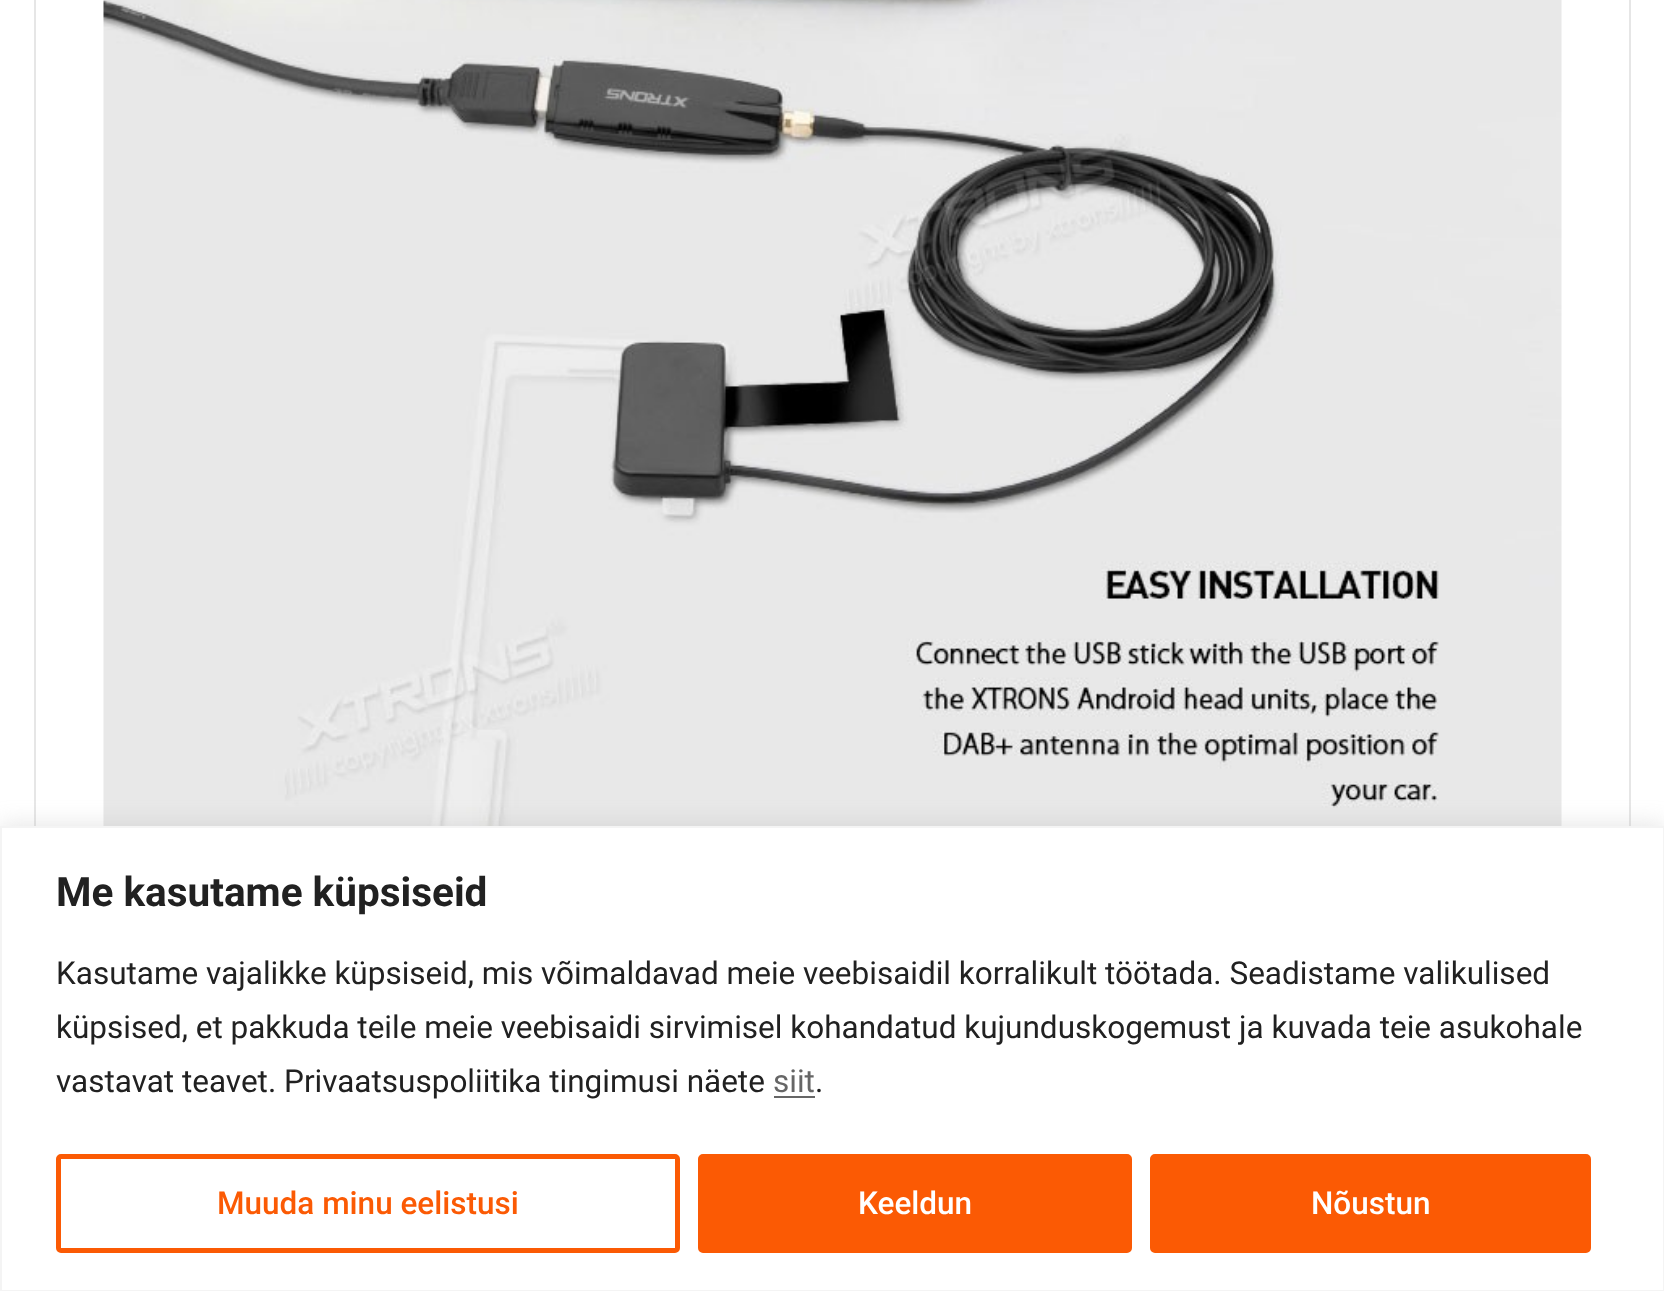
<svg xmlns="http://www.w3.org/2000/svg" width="1664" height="1291">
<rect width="100%" height="100%" fill="#fff"/>
<rect x="35" y="-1" width="1595" height="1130" fill="none" stroke="#e6e6e6" stroke-width="2"/>
<image x="103" y="0" width="1459" height="826" href="media/1.png"/>
<rect y="824" width="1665" height="465" fill="#acabab4d" filter="blur(11px)"/>
<rect x="1" y="827" width="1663" height="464" fill="#fff" stroke="#f4f4f4" stroke-width="2"/>
<text x="56" y="906" style="font-family:Roboto;font-size:40.5px;font-weight:bold;fill:#212121">Me kasutame küpsiseid</text>
<text x="56" y="984" style="font-family:Roboto;font-size:31.5px;fill:#212121">Kasutame vajalikke küpsiseid, mis võimaldavad meie veebisaidil korralikult töötada. Seadistame valikulised</text>
<text x="56" y="1038" style="font-family:Roboto;font-size:31.5px;fill:#212121">küpsised, et pakkuda teile meie veebisaidi sirvimisel kohandatud kujunduskogemust ja kuvada teie asukohale</text>
<text x="56" y="1092" style="font-family:Roboto;font-size:31.5px;fill:#212121">vastavat teavet. Privaatsuspoliitika tingimusi näete</text>
<text x="773" y="1092" style="font-family:Roboto;font-size:31.5px;fill:#666">siit</text>
<rect x="774" y="1096" width="41" height="2" fill="#666"/>
<text x="815" y="1092" style="font-family:Roboto;font-size:31.5px;fill:#212121">.</text>
<rect x="58.5" y="1156.5" width="619" height="94" rx="2.5" fill="none" stroke="#fb5a04" stroke-width="5"/>
<text x="217" y="1214" style="font-family:Roboto;font-size:31.5px;font-weight:500;fill:#fb5a04">Muuda minu eelistusi</text>
<rect x="700.5" y="1156.5" width="429" height="94" rx="2.5" fill="#fb5a04" stroke="#fb5a04" stroke-width="5"/>
<text x="858" y="1214" style="font-family:Roboto;font-size:31.5px;font-weight:500;fill:#fff">Keeldun</text>
<rect x="1152.5" y="1156.5" width="436" height="94" rx="2.5" fill="#fb5a04" stroke="#fb5a04" stroke-width="5"/>
<text x="1311" y="1214" style="font-family:Roboto;font-size:31.5px;font-weight:500;fill:#fff">Nõustun</text>
</svg>
